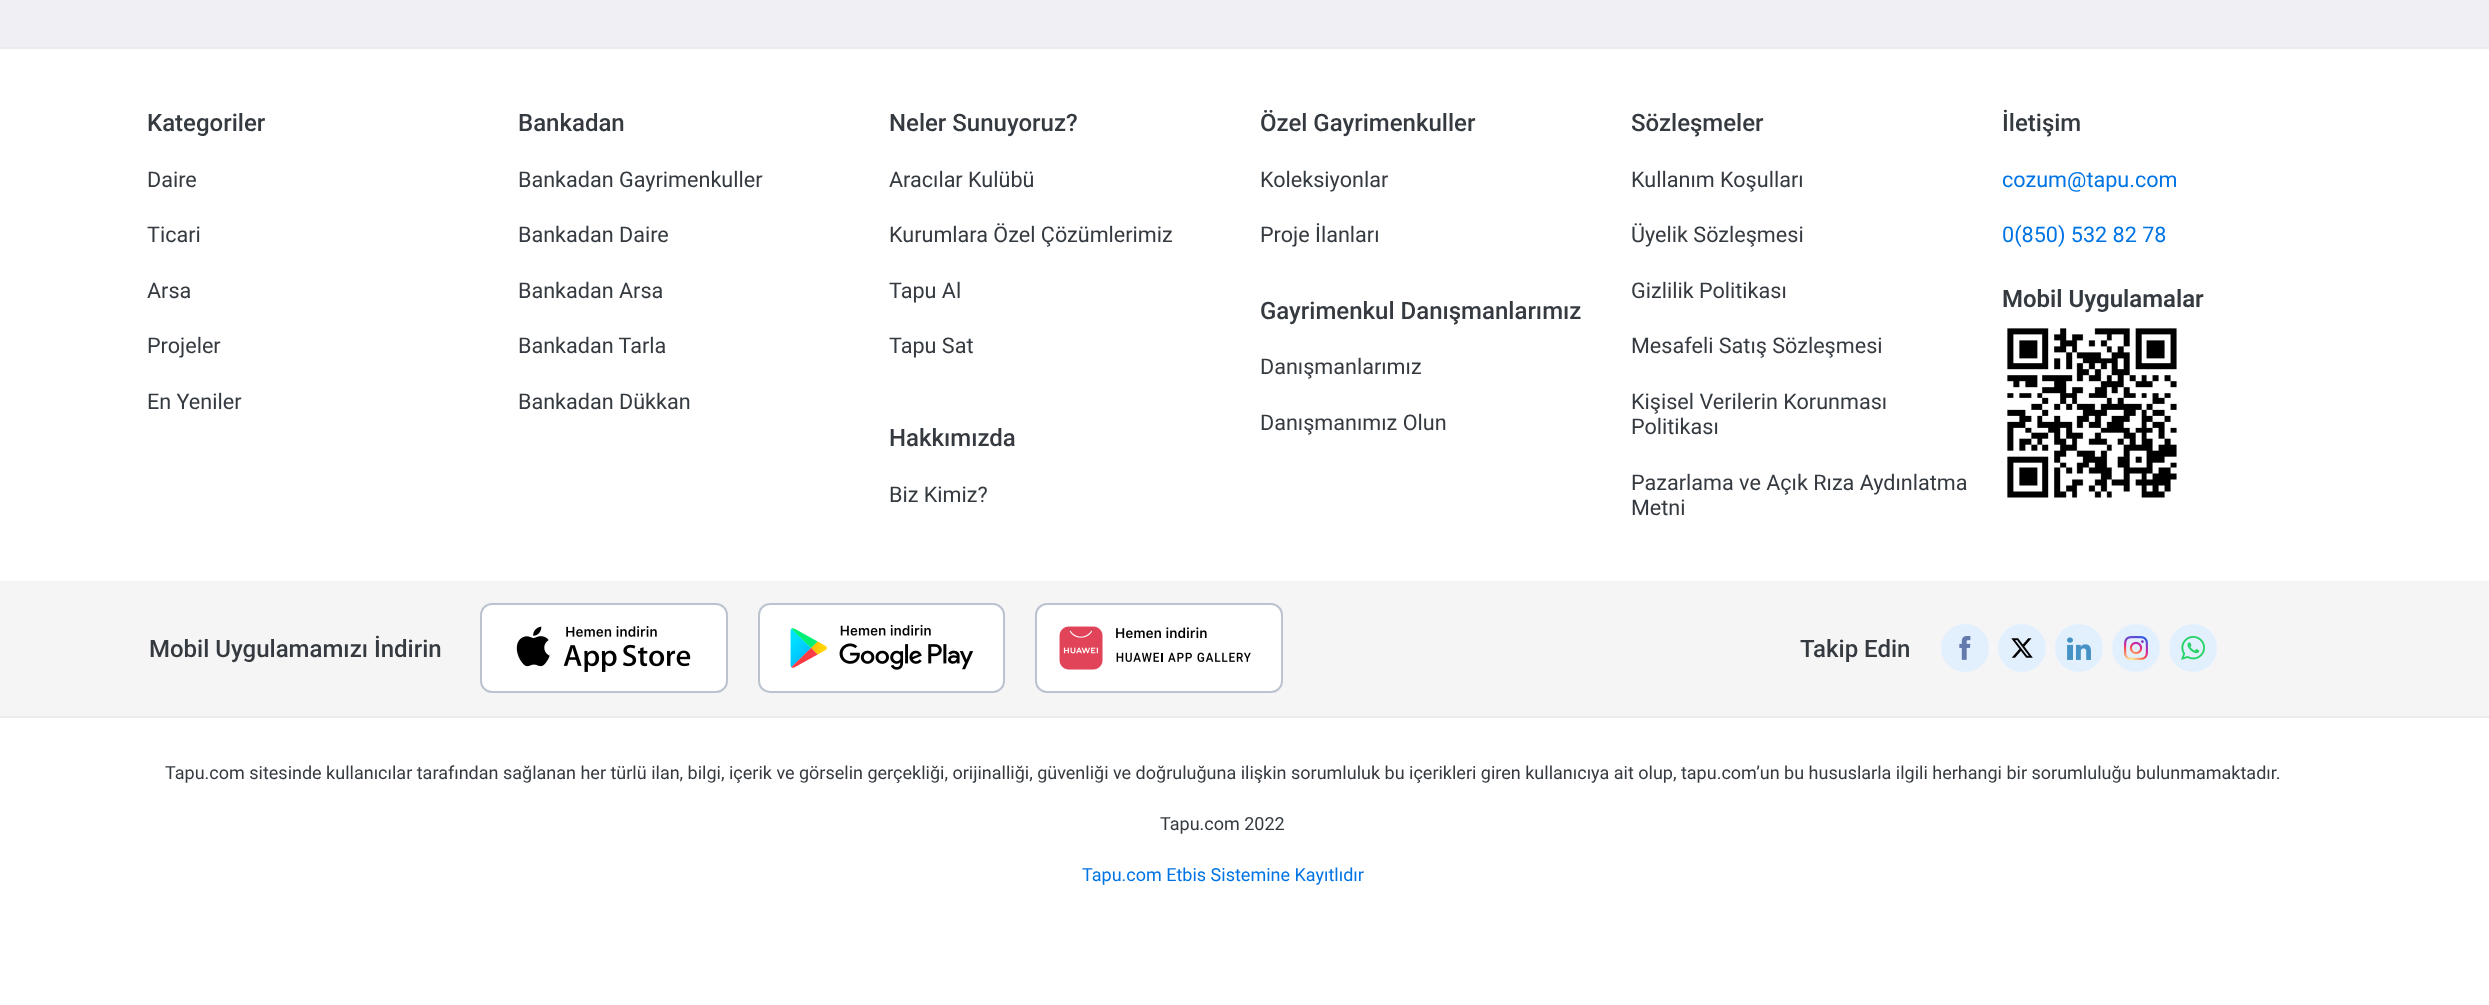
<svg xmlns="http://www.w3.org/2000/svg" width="2489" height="1005">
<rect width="100%" height="100%" fill="#fff"/>
<rect width="2489" height="47" fill="#efeff4"/>
<rect y="47" width="2489" height="2" fill="#e9ecef"/>
<text x="147" y="131" style="font-family:Roboto;font-size:24px;font-weight:500;fill:#343a40">Kategoriler</text>
<text x="147" y="187" style="font-family:Roboto;font-size:21.6px;fill:#343a40">Daire</text>
<text x="147" y="242" style="font-family:Roboto;font-size:21.6px;fill:#343a40">Ticari</text>
<text x="147" y="298" style="font-family:Roboto;font-size:21.6px;fill:#343a40">Arsa</text>
<text x="147" y="353" style="font-family:Roboto;font-size:21.6px;fill:#343a40">Projeler</text>
<text x="147" y="409" style="font-family:Roboto;font-size:21.6px;fill:#343a40">En Yeniler</text>
<text x="518" y="131" style="font-family:Roboto;font-size:24px;font-weight:500;fill:#343a40">Bankadan</text>
<text x="518" y="187" style="font-family:Roboto;font-size:21.6px;fill:#343a40">Bankadan Gayrimenkuller</text>
<text x="518" y="242" style="font-family:Roboto;font-size:21.6px;fill:#343a40">Bankadan Daire</text>
<text x="518" y="298" style="font-family:Roboto;font-size:21.6px;fill:#343a40">Bankadan Arsa</text>
<text x="518" y="353" style="font-family:Roboto;font-size:21.6px;fill:#343a40">Bankadan Tarla</text>
<text x="518" y="409" style="font-family:Roboto;font-size:21.6px;fill:#343a40">Bankadan Dükkan</text>
<text x="889" y="131" style="font-family:Roboto;font-size:24px;font-weight:500;fill:#343a40">Neler Sunuyoruz?</text>
<text x="889" y="187" style="font-family:Roboto;font-size:21.6px;fill:#343a40">Aracılar Kulübü</text>
<text x="889" y="242" style="font-family:Roboto;font-size:21.6px;fill:#343a40">Kurumlara Özel Çözümlerimiz</text>
<text x="889" y="298" style="font-family:Roboto;font-size:21.6px;fill:#343a40">Tapu Al</text>
<text x="889" y="353" style="font-family:Roboto;font-size:21.6px;fill:#343a40">Tapu Sat</text>
<text x="1260" y="131" style="font-family:Roboto;font-size:24px;font-weight:500;fill:#343a40">Özel Gayrimenkuller</text>
<text x="1260" y="187" style="font-family:Roboto;font-size:21.6px;fill:#343a40">Koleksiyonlar</text>
<text x="1260" y="242" style="font-family:Roboto;font-size:21.6px;fill:#343a40">Proje İlanları</text>
<text x="1631" y="131" style="font-family:Roboto;font-size:24px;font-weight:500;fill:#343a40">Sözleşmeler</text>
<text x="1631" y="187" style="font-family:Roboto;font-size:21.6px;fill:#343a40">Kullanım Koşulları</text>
<text x="1631" y="242" style="font-family:Roboto;font-size:21.6px;fill:#343a40">Üyelik Sözleşmesi</text>
<text x="1631" y="298" style="font-family:Roboto;font-size:21.6px;fill:#343a40">Gizlilik Politikası</text>
<text x="1631" y="353" style="font-family:Roboto;font-size:21.6px;fill:#343a40">Mesafeli Satış Sözleşmesi</text>
<text x="1631" y="409" style="font-family:Roboto;font-size:21.6px;fill:#343a40">Kişisel Verilerin Korunması</text>
<text x="1631" y="434" style="font-family:Roboto;font-size:21.6px;fill:#343a40">Politikası</text>
<text x="1631" y="490" style="font-family:Roboto;font-size:21.6px;fill:#343a40">Pazarlama ve Açık Rıza Aydınlatma</text>
<text x="1631" y="515" style="font-family:Roboto;font-size:21.6px;fill:#343a40">Metni</text>
<text x="2002" y="131" style="font-family:Roboto;font-size:24px;font-weight:500;fill:#343a40">İletişim</text>
<text x="2002" y="187" style="font-family:Roboto;font-size:21.6px;fill:#0174e4">cozum@tapu.com</text>
<text x="2002" y="242" style="font-family:Roboto;font-size:21.6px;fill:#0174e4">0(850) 532 82 78</text>
<text x="2002" y="307" style="font-family:Roboto;font-size:24px;font-weight:600;fill:#343a40">Mobil Uygulamalar</text>
<image x="2007" y="328" width="170" height="170" href="media/1.png"/>
<text x="1260" y="319" style="font-family:Roboto;font-size:24px;font-weight:500;fill:#343a40">Gayrimenkul Danışmanlarımız</text>
<text x="1260" y="374" style="font-family:Roboto;font-size:21.6px;fill:#343a40">Danışmanlarımız</text>
<text x="1260" y="430" style="font-family:Roboto;font-size:21.6px;fill:#343a40">Danışmanımız Olun</text>
<text x="889" y="446" style="font-family:Roboto;font-size:24px;font-weight:500;fill:#343a40">Hakkımızda</text>
<text x="889" y="502" style="font-family:Roboto;font-size:21.6px;fill:#343a40">Biz Kimiz?</text>
<rect y="581" width="2489" height="135" fill="#f5f5f5"/>
<text x="149" y="657" style="font-family:Roboto;font-size:24px;font-weight:500;fill:#343a40">Mobil Uygulamamızı İndirin</text>
<rect x="481" y="604" width="246" height="88" rx="11" fill="#fff" stroke="#bbc3cf" stroke-width="2"/>
<image x="516" y="626" width="175" height="46" href="media/2.png"/>
<rect x="759" y="604" width="245" height="88" rx="11" fill="#fff" stroke="#bbc3cf" stroke-width="2"/>
<image x="790" y="624" width="184" height="46" href="media/3.png"/>
<rect x="1036" y="604" width="246" height="88" rx="11" fill="#fff" stroke="#bbc3cf" stroke-width="2"/>
<image x="1059" y="626" width="192" height="44" href="media/4.png"/>
<text x="1800" y="657" style="font-family:Roboto;font-size:24px;font-weight:500;fill:#343a40">Takip Edin</text>
<circle cx="1965" cy="648" r="24" fill="#e2f0fe"/>
<image x="1959" y="636" width="12" height="24" href="media/5.png"/>
<circle cx="2022" cy="648" r="24" fill="#e2f0fe"/>
<image x="2011" y="638" width="22" height="20" href="media/6.png"/>
<circle cx="2079" cy="648" r="24" fill="#e2f0fe"/>
<image x="2067" y="637" width="24" height="23" href="media/7.png"/>
<circle cx="2136" cy="648" r="24" fill="#e2f0fe"/>
<image x="2124" y="636" width="24" height="24" href="media/8.png"/>
<circle cx="2193" cy="648" r="24" fill="#e2f0fe"/>
<image x="2181" y="636" width="24" height="24" href="media/9.png"/>
<rect y="716" width="2489" height="2" fill="#e9ecef"/>
<text x="165" y="779" style="font-family:Roboto;font-size:18px;fill:#343a40">Tapu.com sitesinde kullanıcılar tarafından sağlanan her türlü ilan, bilgi, içerik ve görselin gerçekliği, orijinalliği, güvenliği ve doğruluğuna ilişkin sorumluluk bu içerikleri giren kullanıcıya ait olup, tapu.com’un bu hususlarla ilgili herhangi bir sorumluluğu bulunmamaktadır.</text>
<text x="1160" y="830" style="font-family:Roboto;font-size:18px;fill:#343a40">Tapu.com 2022</text>
<text x="1082" y="881" style="font-family:Roboto;font-size:18px;fill:#0174e4">Tapu.com Etbis Sistemine Kayıtlıdır</text>
</svg>
